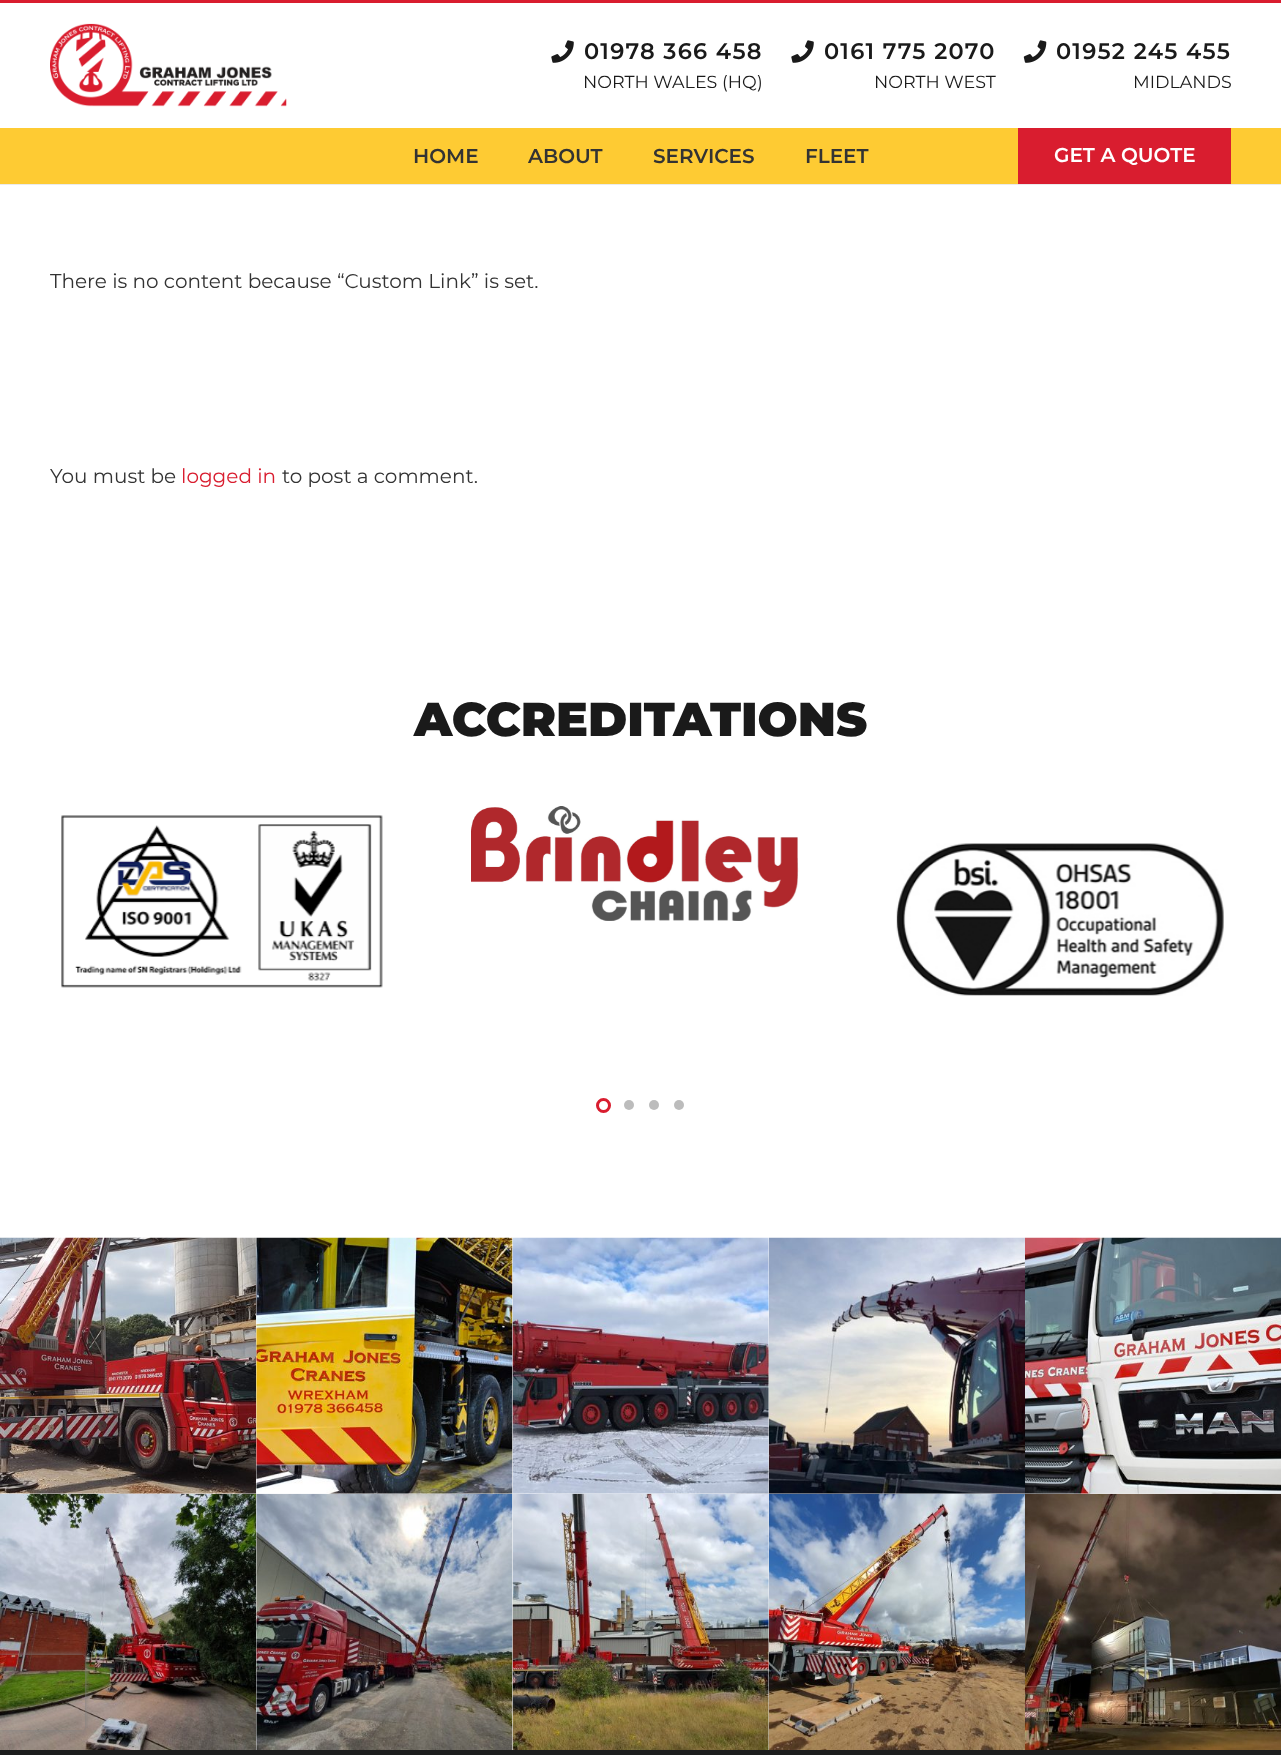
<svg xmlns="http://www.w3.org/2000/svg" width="1281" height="1755">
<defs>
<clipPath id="clip1"><path d="M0 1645h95v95h-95zm.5 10h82c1.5 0 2.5 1 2.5 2.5v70c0 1.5-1 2.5-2.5 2.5h-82c-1.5 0-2.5-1-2.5-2.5v-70c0-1.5 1-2.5 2.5-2.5z" clip-rule="evenodd"/></clipPath>
</defs>
<rect width="100%" height="100%" fill="#fff"/>
<rect width="1281" height="3" fill="#d91d2f"/>
<image x="50" y="23" width="237" height="84" href="media/1.png"/>
<image x="551" y="40" width="23" height="23" href="media/2.png"/>
<text x="584" y="59" style="font-family:Montserrat;font-size:22.5px;font-weight:600;letter-spacing:1.25px;fill:#1a1a1a">01978 366 458</text>
<text x="583" y="88" style="font-family:Montserrat;font-size:17.5px;fill:#1a1a1a">NORTH WALES (HQ)</text>
<image x="791" y="40" width="23" height="23" href="media/2.png"/>
<text x="824" y="59" style="font-family:Montserrat;font-size:22.5px;font-weight:600;letter-spacing:1.25px;fill:#1a1a1a">0161 775 2070</text>
<text x="874" y="88" style="font-family:Montserrat;font-size:17.5px;fill:#1a1a1a">NORTH WEST</text>
<image x="1023" y="40" width="24" height="23" href="media/3.png"/>
<text x="1056" y="59" style="font-family:Montserrat;font-size:22.5px;font-weight:600;letter-spacing:1.25px;fill:#1a1a1a">01952 245 455</text>
<text x="1133" y="88" style="font-family:Montserrat;font-size:17.5px;fill:#1a1a1a">MIDLANDS</text>
<rect y="184" width="1281" height="1" fill="#ebebeb"/>
<rect y="128" width="1281" height="56" fill="#fecb33"/>
<text x="413" y="163" style="font-family:Montserrat;font-size:20px;font-weight:600;fill:#333">HOME</text>
<text x="528" y="163" style="font-family:Montserrat;font-size:20px;font-weight:600;fill:#333">ABOUT</text>
<text x="653" y="163" style="font-family:Montserrat;font-size:20px;font-weight:600;fill:#333">SERVICES</text>
<text x="805" y="163" style="font-family:Montserrat;font-size:20px;font-weight:600;fill:#333">FLEET</text>
<rect x="1018" y="128" width="213" height="56" fill="#d91d2f"/>
<text x="1054" y="162" style="font-family:Montserrat;font-size:20px;font-weight:600;fill:#fff">GET A QUOTE</text>
<text x="50" y="288" style="font-family:Montserrat;font-size:20px;fill:#333">There is no content because “Custom Link” is set.</text>
<text x="50" y="483" style="font-family:Montserrat;font-size:20px;fill:#333">You must be</text>
<text x="181" y="483" style="font-family:Montserrat;font-size:20px;fill:#d91d2f">logged in</text>
<text x="282" y="483" style="font-family:Montserrat;font-size:20px;fill:#333">to post a comment.</text>
<text x="414" y="736" style="font-family:Montserrat;font-size:47.5px;font-weight:900;fill:#1a1a1a">ACCREDITATIONS</text>
<image x="61" y="815" width="322" height="173" href="media/4.png"/>
<image x="471" y="806" width="328" height="115" href="media/5.png"/>
<image x="896" y="843" width="328" height="153" href="media/6.png"/>
<circle cx="603.5" cy="1105.5" r="6" fill="none" stroke="#d91d2f" stroke-width="3"/>
<circle cx="629" cy="1105" r="5" fill="#bcbcbc"/>
<circle cx="654" cy="1105" r="5" fill="#bcbcbc"/>
<circle cx="679" cy="1105" r="5" fill="#bcbcbc"/>
<image x="0" y="1237" width="257" height="257" href="media/7.png"/>
<image x="256" y="1237" width="257" height="257" href="media/8.png"/>
<image x="512" y="1237" width="257" height="257" href="media/9.png"/>
<image x="768" y="1237" width="257" height="257" href="media/10.png"/>
<image x="1025" y="1237" width="256" height="257" href="media/11.png"/>
<image x="0" y="1493" width="257" height="257" href="media/12.png"/>
<image x="256" y="1493" width="257" height="257" href="media/13.png"/>
<image x="512" y="1493" width="257" height="257" href="media/14.png"/>
<image x="768" y="1493" width="257" height="257" href="media/15.png"/>
<image x="1025" y="1493" width="256" height="257" href="media/16.png"/>
<rect y="1750" width="1281" height="5" fill="#1c1d1d"/>
<g clip-path="url(#clip1)">
<rect x="-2" y="1655" width="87" height="75" rx="2.5" fill="#808080" filter="blur(3px)"/>
</g>
</svg>
